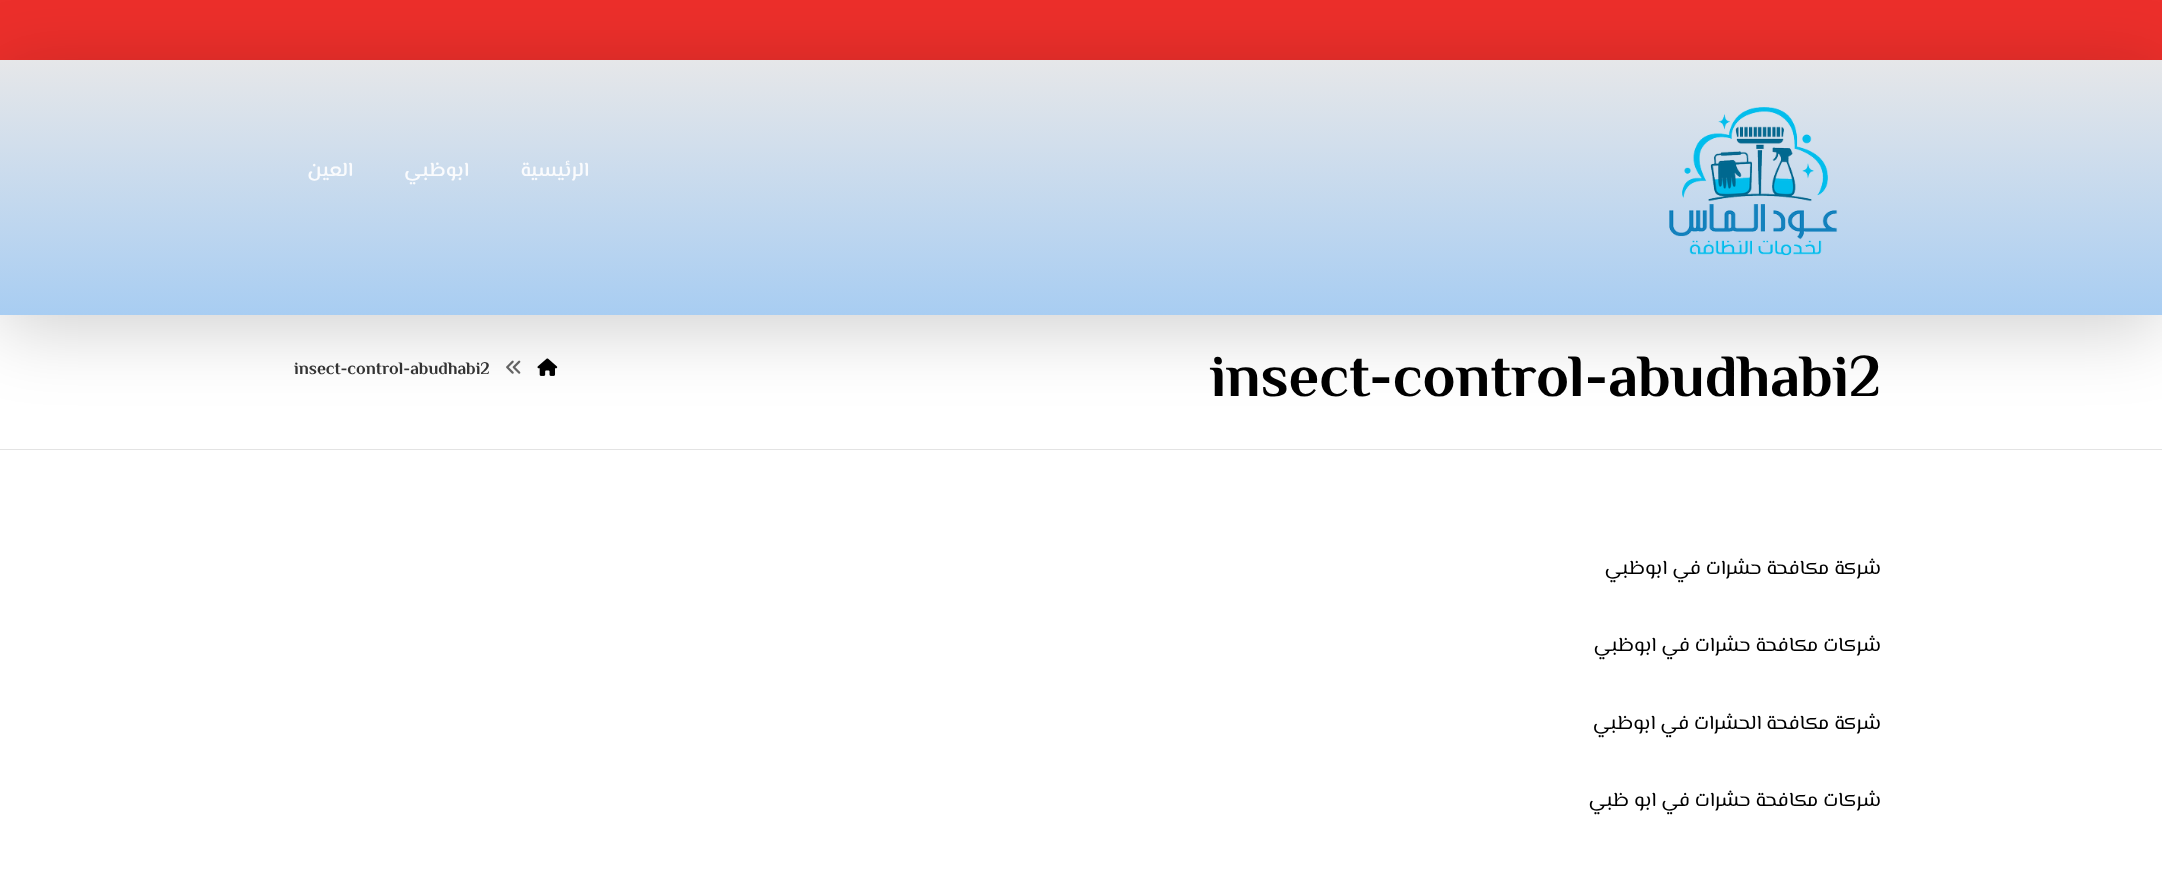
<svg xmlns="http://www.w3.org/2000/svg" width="2162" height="869">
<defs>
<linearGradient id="g1" gradientUnits="userSpaceOnUse" x1="1081" y1="315" x2="1081" y2="60"><stop offset="0" stop-color="#a8cdf2"/><stop offset="1" stop-color="#e6e7e9"/></linearGradient>
</defs>
<rect width="100%" height="100%" fill="#fff"/>
<rect width="2162" height="60" fill="#ec2f2b"/>
<image x="537" y="358" width="21" height="18" href="media/2.png"/>
<image x="506" y="360" width="15" height="14" href="media/3.png"/>
<rect y="73" width="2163" height="255" fill="#00000030" filter="blur(37.5px)"/>
<rect y="60" width="2162" height="255" fill="url(#g1)"/>
<image x="1669" y="107" width="169" height="149" href="media/1.png"/>
<text x="589" y="176" style="font-family:El Messiri;font-size:20px;font-weight:600;direction:rtl;fill:#fafbfd">الرئيسية</text>
<text x="469" y="176" style="font-family:El Messiri;font-size:20px;font-weight:600;direction:rtl;fill:#fafbfd">ابوظبي</text>
<text x="353" y="176" style="font-family:El Messiri;font-size:20px;font-weight:600;direction:rtl;fill:#fafbfd">العين</text>
<rect y="449" width="2162" height="1" fill="#e3e3e3"/>
<text x="1210" y="396" style="font-family:El Messiri;font-size:60px;font-weight:bold;fill:#000">insect-control-abudhabi2</text>
<text x="294" y="374" style="font-family:El Messiri;font-size:17.5px;font-weight:bold;fill:#333">insect-control-abudhabi2</text>
<text x="1881" y="574" style="font-family:El Messiri;font-size:20px;direction:rtl;fill:#000">شركة مكافحة حشرات في ابوظبي</text>
<text x="1881" y="651" style="font-family:El Messiri;font-size:20px;direction:rtl;fill:#000">شركات مكافحة حشرات في ابوظبي</text>
<text x="1881" y="729" style="font-family:El Messiri;font-size:20px;direction:rtl;fill:#000">شركة مكافحة الحشرات في ابوظبي</text>
<text x="1881" y="806" style="font-family:El Messiri;font-size:20px;direction:rtl;fill:#000">شركات مكافحة حشرات في ابو ظبي</text>
</svg>
